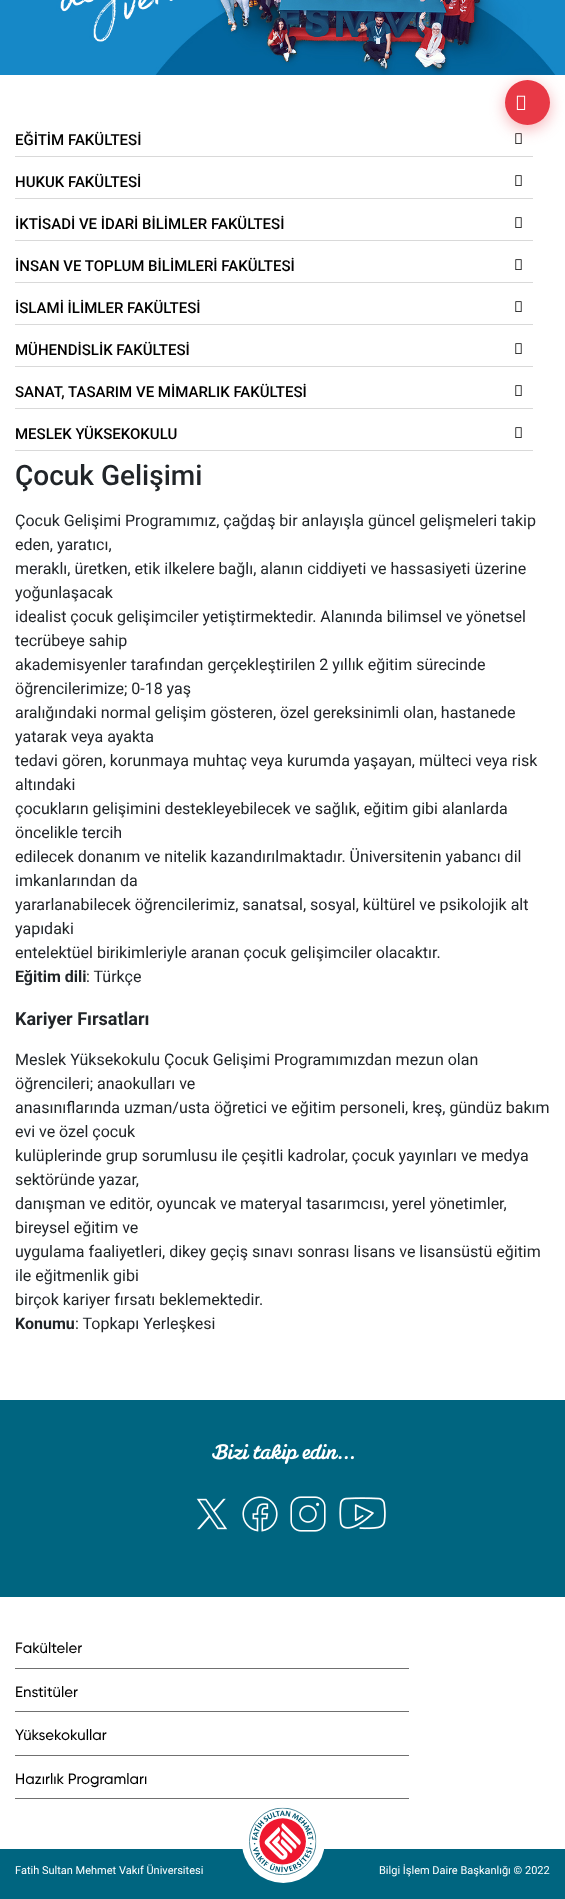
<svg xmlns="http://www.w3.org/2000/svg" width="565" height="1899">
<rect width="100%" height="100%" fill="#fff"/>
<image x="0" y="0" width="565" height="75" href="media/2.png"/>
<image x="515" y="133" width="7" height="11" href="media/3.png"/>
<rect x="505" y="84" width="45" height="45" rx="22.5" fill="#e8394666" filter="blur(7.5px)"/>
<circle cx="527.5" cy="102.5" r="22.5" fill="#e83946"/>
<image x="516" y="95" width="10" height="15" href="media/1.png"/>
<rect x="15" y="156" width="518" height="1" fill="#d9d9d9"/>
<text x="15" y="145" style="font-family:Roboto;font-size:15px;font-weight:500;fill:#000">EĞİTİM FAKÜLTESİ</text>
<rect x="15" y="198" width="518" height="1" fill="#d9d9d9"/>
<text x="15" y="187" style="font-family:Roboto;font-size:15px;font-weight:500;fill:#000">HUKUK FAKÜLTESİ</text>
<image x="515" y="175" width="7" height="11" href="media/3.png"/>
<rect x="15" y="240" width="518" height="1" fill="#d9d9d9"/>
<text x="15" y="229" style="font-family:Roboto;font-size:15px;font-weight:500;fill:#000">İKTİSADİ VE İDARİ BİLİMLER FAKÜLTESİ</text>
<image x="515" y="217" width="7" height="11" href="media/3.png"/>
<rect x="15" y="282" width="518" height="1" fill="#d9d9d9"/>
<text x="15" y="271" style="font-family:Roboto;font-size:15px;font-weight:500;fill:#000">İNSAN VE TOPLUM BİLİMLERİ FAKÜLTESİ</text>
<image x="515" y="259" width="7" height="11" href="media/3.png"/>
<rect x="15" y="324" width="518" height="1" fill="#d9d9d9"/>
<text x="15" y="313" style="font-family:Roboto;font-size:15px;font-weight:500;fill:#000">İSLAMİ İLİMLER FAKÜLTESİ</text>
<image x="515" y="301" width="7" height="11" href="media/3.png"/>
<rect x="15" y="366" width="518" height="1" fill="#d9d9d9"/>
<text x="15" y="355" style="font-family:Roboto;font-size:15px;font-weight:500;fill:#000">MÜHENDİSLİK FAKÜLTESİ</text>
<image x="515" y="343" width="7" height="11" href="media/3.png"/>
<rect x="15" y="408" width="518" height="1" fill="#d9d9d9"/>
<text x="15" y="397" style="font-family:Roboto;font-size:15px;font-weight:500;fill:#000">SANAT, TASARIM VE MİMARLIK FAKÜLTESİ</text>
<image x="515" y="385" width="7" height="11" href="media/3.png"/>
<rect x="15" y="450" width="518" height="1" fill="#d9d9d9"/>
<text x="15" y="439" style="font-family:Roboto;font-size:15px;font-weight:500;fill:#000">MESLEK YÜKSEKOKULU</text>
<image x="515" y="427" width="7" height="11" href="media/3.png"/>
<text x="15" y="485" style="font-family:Roboto;font-size:28px;font-weight:500;fill:#212529">Çocuk Gelişimi</text>
<text x="15" y="526" style="font-family:Roboto;font-size:16px;fill:#212529">Çocuk Gelişimi Programımız, çağdaş bir anlayışla güncel gelişmeleri takip</text>
<text x="15" y="550" style="font-family:Roboto;font-size:16px;fill:#212529">eden, yaratıcı,</text>
<text x="15" y="574" style="font-family:Roboto;font-size:16px;fill:#212529">meraklı, üretken, etik ilkelere bağlı, alanın ciddiyeti ve hassasiyeti üzerine</text>
<text x="15" y="598" style="font-family:Roboto;font-size:16px;fill:#212529">yoğunlaşacak</text>
<text x="15" y="622" style="font-family:Roboto;font-size:16px;fill:#212529">idealist çocuk gelişimciler yetiştirmektedir. Alanında bilimsel ve yönetsel</text>
<text x="15" y="646" style="font-family:Roboto;font-size:16px;fill:#212529">tecrübeye sahip</text>
<text x="15" y="670" style="font-family:Roboto;font-size:16px;fill:#212529">akademisyenler tarafından gerçekleştirilen 2 yıllık eğitim sürecinde</text>
<text x="15" y="694" style="font-family:Roboto;font-size:16px;fill:#212529">öğrencilerimize; 0-18 yaş</text>
<text x="15" y="718" style="font-family:Roboto;font-size:16px;fill:#212529">aralığındaki normal gelişim gösteren, özel gereksinimli olan, hastanede</text>
<text x="15" y="742" style="font-family:Roboto;font-size:16px;fill:#212529">yatarak veya ayakta</text>
<text x="15" y="766" style="font-family:Roboto;font-size:16px;fill:#212529">tedavi gören, korunmaya muhtaç veya kurumda yaşayan, mülteci veya risk</text>
<text x="15" y="790" style="font-family:Roboto;font-size:16px;fill:#212529">altındaki</text>
<text x="15" y="814" style="font-family:Roboto;font-size:16px;fill:#212529">çocukların gelişimini destekleyebilecek ve sağlık, eğitim gibi alanlarda</text>
<text x="15" y="838" style="font-family:Roboto;font-size:16px;fill:#212529">öncelikle tercih</text>
<text x="15" y="862" style="font-family:Roboto;font-size:16px;fill:#212529">edilecek donanım ve nitelik kazandırılmaktadır. Üniversitenin yabancı dil</text>
<text x="15" y="886" style="font-family:Roboto;font-size:16px;fill:#212529">imkanlarından da</text>
<text x="15" y="910" style="font-family:Roboto;font-size:16px;fill:#212529">yararlanabilecek öğrencilerimiz, sanatsal, sosyal, kültürel ve psikolojik alt</text>
<text x="15" y="934" style="font-family:Roboto;font-size:16px;fill:#212529">yapıdaki</text>
<text x="15" y="958" style="font-family:Roboto;font-size:16px;fill:#212529">entelektüel birikimleriyle aranan çocuk gelişimciler olacaktır.</text>
<text x="15" y="982" style="font-family:Roboto;font-size:16px;font-weight:bold;fill:#212529">Eğitim dili</text>
<text x="86" y="982" style="font-family:Roboto;font-size:16px;fill:#212529">: Türkçe</text>
<text x="15" y="1025" style="font-family:Roboto;font-size:18px;font-weight:bold;fill:#212529">Kariyer Fırsatları</text>
<text x="15" y="1065" style="font-family:Roboto;font-size:16px;fill:#212529">Meslek Yüksekokulu Çocuk Gelişimi Programımızdan mezun olan</text>
<text x="15" y="1089" style="font-family:Roboto;font-size:16px;fill:#212529">öğrencileri; anaokulları ve</text>
<text x="15" y="1113" style="font-family:Roboto;font-size:16px;fill:#212529">anasınıflarında uzman/usta öğretici ve eğitim personeli, kreş, gündüz bakım</text>
<text x="15" y="1137" style="font-family:Roboto;font-size:16px;fill:#212529">evi ve özel çocuk</text>
<text x="15" y="1161" style="font-family:Roboto;font-size:16px;fill:#212529">kulüplerinde grup sorumlusu ile çeşitli kadrolar, çocuk yayınları ve medya</text>
<text x="15" y="1185" style="font-family:Roboto;font-size:16px;fill:#212529">sektöründe yazar,</text>
<text x="15" y="1209" style="font-family:Roboto;font-size:16px;fill:#212529">danışman ve editör, oyuncak ve materyal tasarımcısı, yerel yönetimler,</text>
<text x="15" y="1233" style="font-family:Roboto;font-size:16px;fill:#212529">bireysel eğitim ve</text>
<text x="15" y="1257" style="font-family:Roboto;font-size:16px;fill:#212529">uygulama faaliyetleri, dikey geçiş sınavı sonrası lisans ve lisansüstü eğitim</text>
<text x="15" y="1281" style="font-family:Roboto;font-size:16px;fill:#212529">ile eğitmenlik gibi</text>
<text x="15" y="1305" style="font-family:Roboto;font-size:16px;fill:#212529">birçok kariyer fırsatı beklemektedir.</text>
<text x="15" y="1329" style="font-family:Roboto;font-size:16px;font-weight:bold;fill:#212529">Konumu</text>
<text x="75" y="1329" style="font-family:Roboto;font-size:16px;fill:#212529">: Topkapı Yerleşkesi</text>
<rect y="1400" width="565" height="197" fill="#006580"/>
<image x="212" y="1444" width="142" height="20" href="media/4.png"/>
<image x="196" y="1498" width="32" height="32" href="media/5.png"/>
<image x="242" y="1496" width="36" height="36" href="media/6.png"/>
<image x="290" y="1496" width="36" height="36" href="media/7.png"/>
<image x="339" y="1497" width="47" height="33" href="media/8.png"/>
<rect x="15" y="1668" width="394" height="1" fill="#707070"/>
<text x="15" y="1653" style="font-family:Gilroy;font-size:15px;font-weight:500;fill:#000">Fakülteler</text>
<rect x="15" y="1711" width="394" height="1" fill="#707070"/>
<text x="15" y="1697" style="font-family:Gilroy;font-size:15px;font-weight:500;fill:#000">Enstitüler</text>
<rect x="15" y="1755" width="394" height="1" fill="#707070"/>
<text x="15" y="1740" style="font-family:Gilroy;font-size:15px;font-weight:500;fill:#000">Yüksekokullar</text>
<rect x="15" y="1798" width="394" height="1" fill="#707070"/>
<text x="15" y="1784" style="font-family:Gilroy;font-size:15px;font-weight:500;fill:#000">Hazırlık Programları</text>
<rect y="1849" width="565" height="50" fill="#006580"/>
<text x="15" y="1874" style="font-family:Roboto;font-size:11px;fill:#fff">Fatih Sultan Mehmet Vakıf Üniversitesi</text>
<image x="242" y="1807" width="82" height="76" href="media/9.png"/>
<text x="379" y="1874" style="font-family:Roboto;font-size:11px;fill:#fff">Bilgi İşlem Daire Başkanlığı © 2022</text>
</svg>
